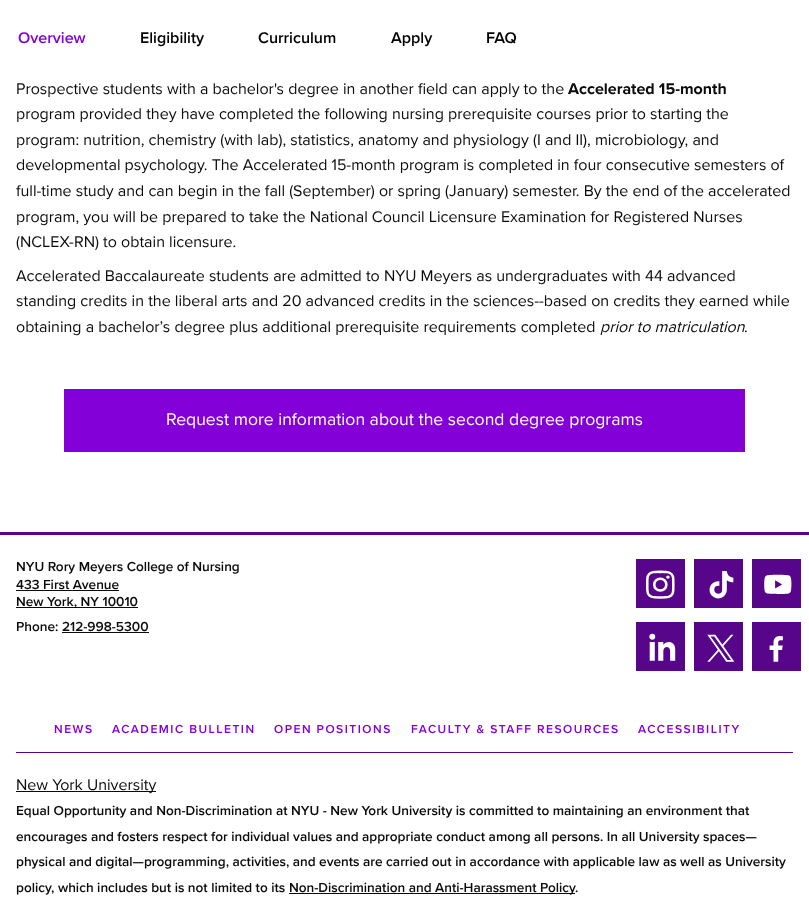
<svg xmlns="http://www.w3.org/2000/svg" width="809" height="917">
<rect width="100%" height="100%" fill="#fff"/>
<text x="18" y="43" style="font-family:Proxima Nova;font-size:16px;font-weight:600;fill:#8400d9">Overview</text>
<text x="140" y="43" style="font-family:Proxima Nova;font-size:16px;font-weight:600;fill:#000">Eligibility</text>
<text x="258" y="43" style="font-family:Proxima Nova;font-size:16px;font-weight:600;fill:#000">Curriculum</text>
<text x="391" y="43" style="font-family:Proxima Nova;font-size:16px;font-weight:600;fill:#000">Apply</text>
<text x="486" y="43" style="font-family:Proxima Nova;font-size:16px;font-weight:600;fill:#000">FAQ</text>
<text x="16" y="94" style="font-family:Proxima Nova;font-size:16px;fill:#0b0b0b">Prospective students with a bachelor's degree in another field can apply to the</text>
<text x="568" y="94" style="font-family:Proxima Nova;font-size:16px;font-weight:bold;fill:#0b0b0b">Accelerated 15-month</text>
<text x="16" y="119" style="font-family:Proxima Nova;font-size:16px;fill:#0b0b0b">program provided they have completed the following nursing prerequisite courses prior to starting the</text>
<text x="16" y="145" style="font-family:Proxima Nova;font-size:16px;fill:#0b0b0b">program: nutrition, chemistry (with lab), statistics, anatomy and physiology (I and II), microbiology, and</text>
<text x="16" y="170" style="font-family:Proxima Nova;font-size:16px;fill:#0b0b0b">developmental psychology. The Accelerated 15-month program is completed in four consecutive semesters of</text>
<text x="16" y="196" style="font-family:Proxima Nova;font-size:16px;fill:#0b0b0b">full-time study and can begin in the fall (September) or spring (January) semester. By the end of the accelerated</text>
<text x="16" y="222" style="font-family:Proxima Nova;font-size:16px;fill:#0b0b0b">program, you will be prepared to take the National Council Licensure Examination for Registered Nurses</text>
<text x="16" y="247" style="font-family:Proxima Nova;font-size:16px;fill:#0b0b0b">(NCLEX-RN) to obtain licensure.</text>
<text x="16" y="281" style="font-family:Proxima Nova;font-size:16px;fill:#0b0b0b">Accelerated Baccalaureate students are admitted to NYU Meyers as undergraduates with 44 advanced</text>
<text x="16" y="306" style="font-family:Proxima Nova;font-size:16px;fill:#0b0b0b">standing credits in the liberal arts and 20 advanced credits in the sciences--based on credits they earned while</text>
<text x="16" y="332" style="font-family:Proxima Nova;font-size:16px;fill:#0b0b0b">obtaining a bachelor’s degree plus additional prerequisite requirements completed</text>
<text x="600" y="332" style="font-family:Proxima Nova;font-size:16px;font-style:italic;fill:#0b0b0b">prior to matriculation</text>
<text x="744" y="332" style="font-family:Proxima Nova;font-size:16px;fill:#0b0b0b">.</text>
<rect x="64" y="389" width="681" height="63" fill="#8400d9"/>
<text x="166" y="425" style="font-family:Proxima Nova;font-size:17.6px;fill:#fff">Request more information about the second degree programs</text>
<rect y="532" width="809" height="3" fill="#57068c"/>
<text x="16" y="571" style="font-family:Proxima Nova;font-size:13.6px;font-weight:600;fill:#0b0b0b">NYU Rory Meyers College of Nursing</text>
<text x="16" y="589" style="font-family:Proxima Nova;font-size:13.6px;font-weight:600;fill:#0b0b0b">433 First Avenue</text>
<rect x="16" y="590" width="103" height="1" fill="#0b0b0b"/>
<rect x="16" y="607" width="122" height="1" fill="#0b0b0b"/>
<text x="16" y="606" style="font-family:Proxima Nova;font-size:13.6px;font-weight:600;fill:#0b0b0b">New York, NY 10010</text>
<text x="16" y="631" style="font-family:Proxima Nova;font-size:13.6px;font-weight:600;fill:#0b0b0b">Phone: 212-998-5300</text>
<rect x="62" y="632" width="87" height="1" fill="#0b0b0b"/>
<rect x="636" y="559" width="49" height="49" fill="#57068c"/>
<image x="646" y="570" width="29" height="29" href="media/1.png"/>
<rect x="694" y="559" width="49" height="49" fill="#57068c"/>
<image x="709" y="571" width="25" height="28" href="media/2.png"/>
<rect x="752" y="559" width="49" height="49" fill="#57068c"/>
<image x="764" y="574" width="28" height="21" href="media/3.png"/>
<rect x="636" y="622" width="49" height="49" fill="#57068c"/>
<image x="649" y="633" width="27" height="28" href="media/4.png"/>
<rect x="694" y="622" width="49" height="49" fill="#57068c"/>
<image x="707" y="634" width="28" height="28" href="media/5.png"/>
<rect x="752" y="622" width="49" height="49" fill="#57068c"/>
<image x="769" y="636" width="14" height="26" href="media/6.png"/>
<text x="54" y="733" style="font-family:Proxima Nova;font-size:12px;font-weight:600;letter-spacing:1.5px;fill:#8400d9">NEWS</text>
<text x="112" y="733" style="font-family:Proxima Nova;font-size:12px;font-weight:600;letter-spacing:1.5px;fill:#8400d9">ACADEMIC BULLETIN</text>
<text x="274" y="733" style="font-family:Proxima Nova;font-size:12px;font-weight:600;letter-spacing:1.5px;fill:#8400d9">OPEN POSITIONS</text>
<text x="411" y="733" style="font-family:Proxima Nova;font-size:12px;font-weight:600;letter-spacing:1.5px;fill:#8400d9">FACULTY &amp; STAFF RESOURCES</text>
<text x="638" y="733" style="font-family:Proxima Nova;font-size:12px;font-weight:600;letter-spacing:1.5px;fill:#8400d9">ACCESSIBILITY</text>
<rect x="16" y="752" width="777" height="1" fill="#57068c"/>
<rect x="16" y="791" width="140" height="1" fill="#0b0b0b"/>
<text x="16" y="790" style="font-family:Proxima Nova;font-size:16px;fill:#0b0b0b">New York University</text>
<text x="16" y="815" style="font-family:Proxima Nova;font-size:13.6px;font-weight:600;fill:#0b0b0b">Equal Opportunity and Non-Discrimination at NYU - New York University is committed to maintaining an environment that</text>
<text x="16" y="841" style="font-family:Proxima Nova;font-size:13.6px;font-weight:600;fill:#0b0b0b">encourages and fosters respect for individual values and appropriate conduct among all persons. In all University spaces—</text>
<text x="16" y="866" style="font-family:Proxima Nova;font-size:13.6px;font-weight:600;fill:#0b0b0b">physical and digital—programming, activities, and events are carried out in accordance with applicable law as well as University</text>
<text x="16" y="892" style="font-family:Proxima Nova;font-size:13.6px;font-weight:600;fill:#0b0b0b">policy, which includes but is not limited to its</text>
<rect x="289" y="893" width="286" height="1" fill="#0b0b0b"/>
<text x="289" y="892" style="font-family:Proxima Nova;font-size:13.6px;font-weight:600;fill:#0b0b0b">Non-Discrimination and Anti-Harassment Policy</text>
<text x="575" y="892" style="font-family:Proxima Nova;font-size:13.6px;font-weight:600;fill:#0b0b0b">.</text>
</svg>
